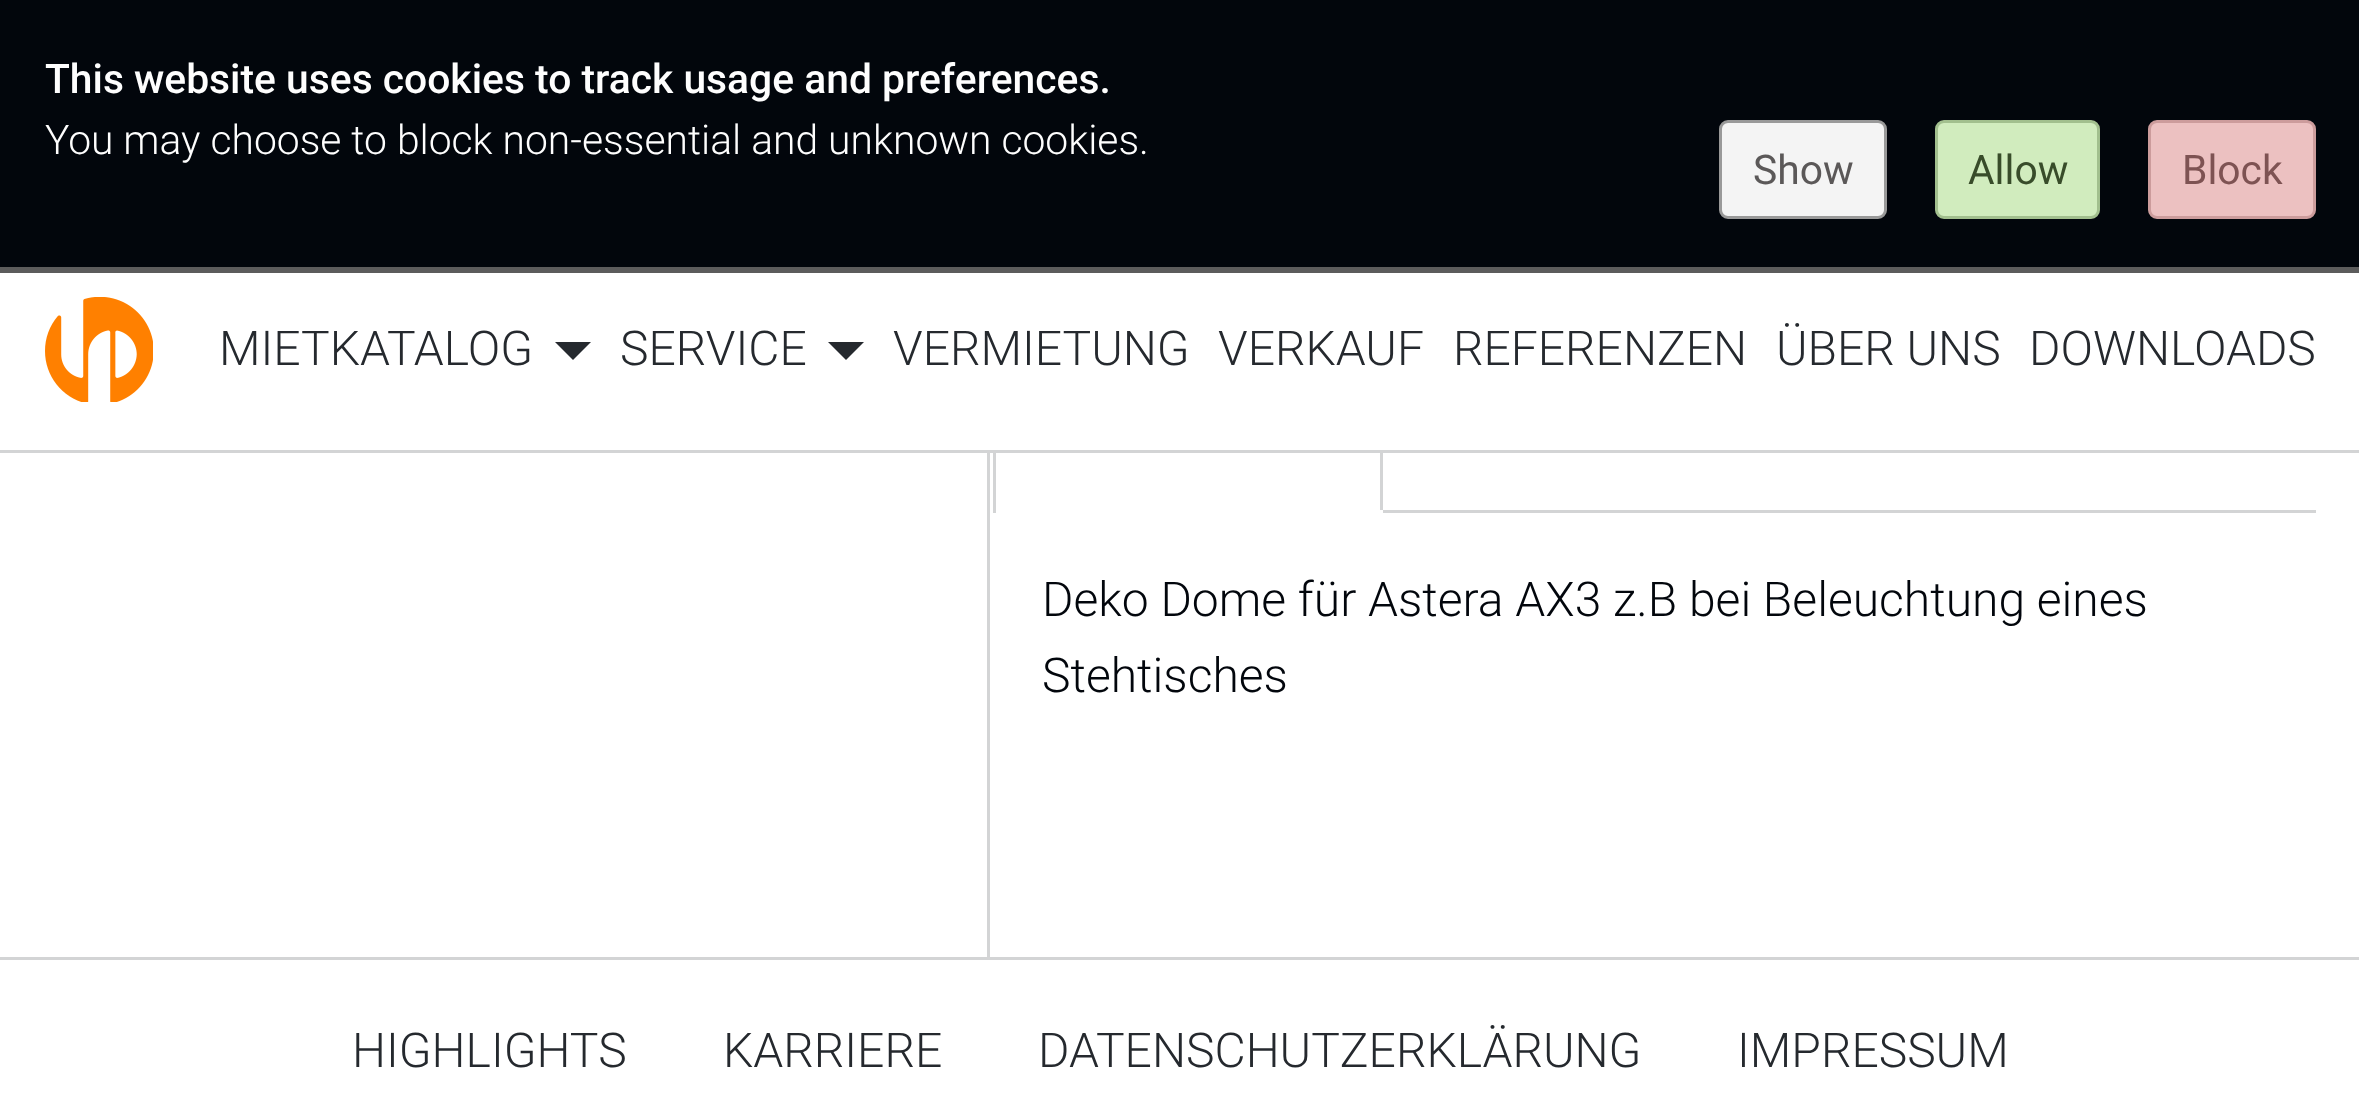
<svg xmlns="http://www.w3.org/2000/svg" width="2359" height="1108">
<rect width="100%" height="100%" fill="#fff"/>
<rect y="450" width="2359" height="3" fill="#d3d4d5"/>
<rect width="2359" height="267" fill="#02060c"/>
<rect y="267" width="2359" height="6" fill="#5c5c5c"/>
<text x="45" y="93" style="font-family:Roboto;font-size:40.8px;font-weight:500;fill:#fefefe">This website uses cookies to track usage and preferences.</text>
<text x="45" y="154" style="font-family:Roboto;font-size:40.8px;font-weight:300;fill:#fefefe">You may choose to block non-essential and unknown cookies.</text>
<rect x="1720.5" y="121.5" width="165" height="96" rx="7.5" fill="#f4f4f4" stroke="#999" stroke-width="3"/>
<text x="1753" y="184" style="font-family:Roboto;font-size:40.8px;fill:#5b5858">Show</text>
<rect x="1936.5" y="121.5" width="162" height="96" rx="7.5" fill="#d1ecbe" stroke="#a2bf8e" stroke-width="3"/>
<text x="1968" y="184" style="font-family:Roboto;font-size:40.8px;fill:#384c2a">Allow</text>
<rect x="2149.5" y="121.5" width="165" height="96" rx="7.5" fill="#ecc1c1" stroke="#cc9c9c" stroke-width="3"/>
<text x="2182" y="184" style="font-family:Roboto;font-size:40.8px;fill:#7e5353">Block</text>
<image x="45" y="297" width="108" height="105" href="media/1.png"/>
<text x="219" y="365" style="font-family:Roboto;font-size:48px;font-weight:300;fill:#25292e">MIETKATALOG</text>
<path d="M555 342h36l-18 18z" fill="#25292e"/>
<text x="620" y="365" style="font-family:Roboto;font-size:48px;font-weight:300;fill:#25292e">SERVICE</text>
<path d="M828 342h36l-18 18z" fill="#25292e"/>
<text x="893" y="365" style="font-family:Roboto;font-size:48px;font-weight:300;fill:#25292e">VERMIETUNG</text>
<text x="1218" y="365" style="font-family:Roboto;font-size:48px;font-weight:300;fill:#25292e">VERKAUF</text>
<text x="1453" y="365" style="font-family:Roboto;font-size:48px;font-weight:300;fill:#25292e">REFERENZEN</text>
<text x="1776" y="365" style="font-family:Roboto;font-size:48px;font-weight:300;fill:#25292e">ÜBER UNS</text>
<text x="2029" y="365" style="font-family:Roboto;font-size:48px;font-weight:300;fill:#25292e">DOWNLOADS</text>
<rect x="987" y="453" width="3" height="504" fill="#d3d4d5"/>
<rect x="1383" y="510" width="933" height="3" fill="#d3d4d5"/>
<rect x="1380" y="453" width="3" height="60" fill="#d3d4d5"/>
<rect x="1380" y="510" width="3" height="3" fill="#fefefe"/>
<rect x="993" y="453" width="3" height="60" fill="#d3d4d5"/>
<text x="1042" y="616" style="font-family:Roboto;font-size:48px;font-weight:300;fill:#02060c">Deko Dome für Astera AX3 z.B bei Beleuchtung eines</text>
<text x="1042" y="692" style="font-family:Roboto;font-size:48px;font-weight:300;fill:#02060c">Stehtisches</text>
<rect y="957" width="2359" height="3" fill="#d3d4d5"/>
<text x="352" y="1067" style="font-family:Roboto;font-size:48px;font-weight:300;fill:#25292e">HIGHLIGHTS</text>
<text x="723" y="1067" style="font-family:Roboto;font-size:48px;font-weight:300;fill:#25292e">KARRIERE</text>
<text x="1038" y="1067" style="font-family:Roboto;font-size:48px;font-weight:300;fill:#25292e">DATENSCHUTZERKLÄRUNG</text>
<text x="1737" y="1067" style="font-family:Roboto;font-size:48px;font-weight:300;fill:#25292e">IMPRESSUM</text>
</svg>
